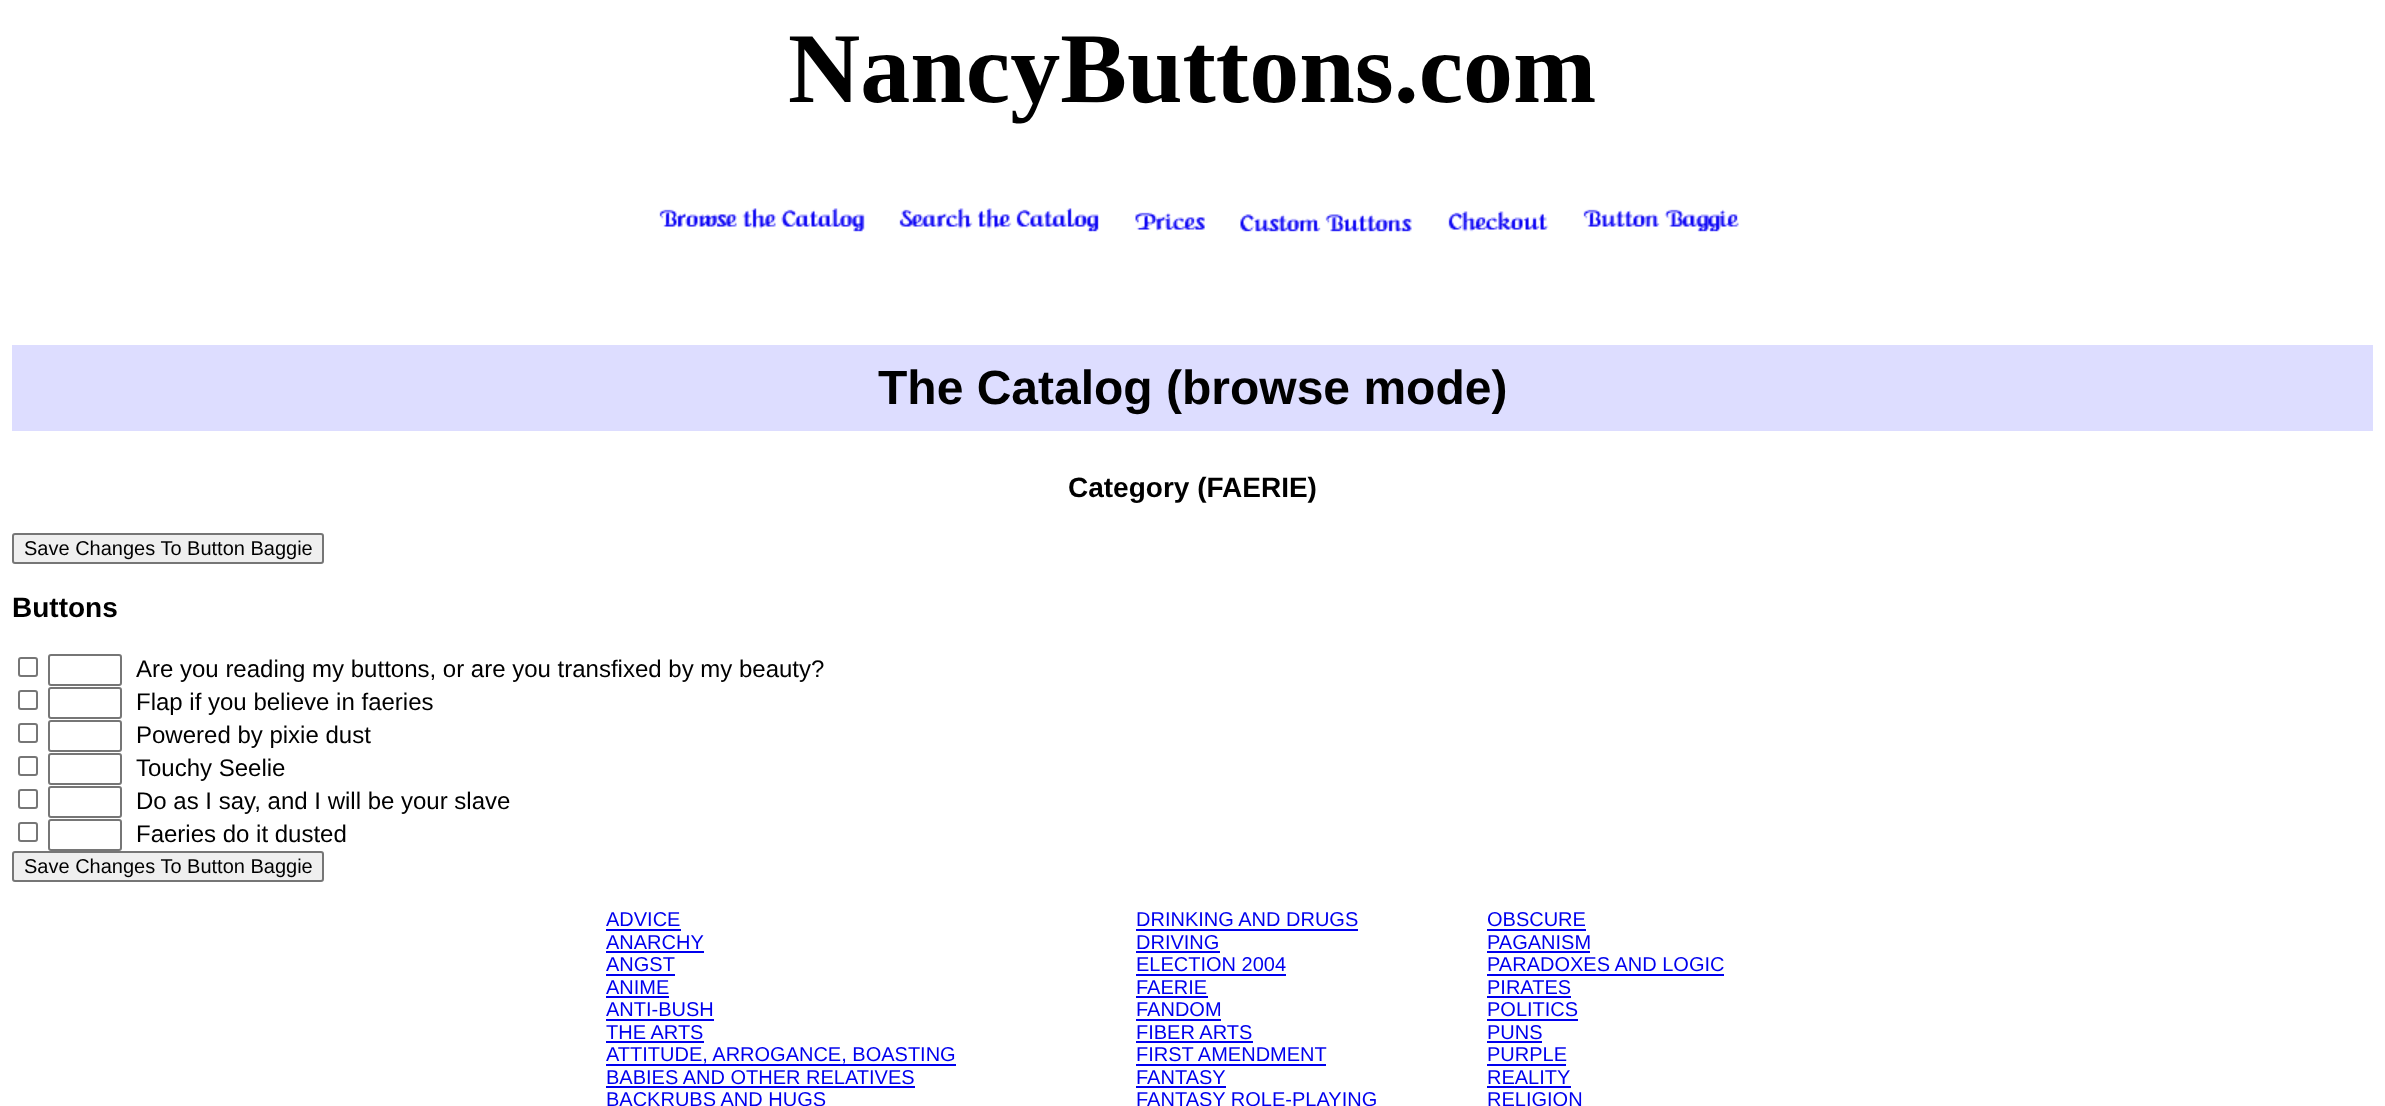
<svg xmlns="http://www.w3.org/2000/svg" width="2385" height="1106">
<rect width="100%" height="100%" fill="#fff"/>
<text x="788" y="102" style="font-family:Liberation Serif;font-size:100px;font-weight:bold;fill:#000">NancyButtons.com</text>
<image x="659" y="208" width="206" height="24" href="media/1.png"/>
<image x="899" y="208" width="200" height="24" href="media/2.png"/>
<image x="1135" y="212" width="70" height="19" href="media/3.png"/>
<image x="1240" y="214" width="172" height="18" href="media/4.png"/>
<image x="1448" y="211" width="101" height="21" href="media/5.png"/>
<image x="1583" y="209" width="156" height="23" href="media/6.png"/>
<rect x="12" y="345" width="2361" height="86" fill="#ddf"/>
<text x="878" y="404" style="font-family:Liberation Sans;font-size:48px;font-weight:bold;fill:#000">The Catalog (browse mode)</text>
<text x="1068" y="497" style="font-family:Liberation Sans;font-size:28px;font-weight:bold;fill:#000">Category (FAERIE)</text>
<rect x="13" y="534" width="310" height="29" rx="2" fill="#efefef" stroke="#767676" stroke-width="2"/>
<text x="24" y="555" style="font-family:Liberation Sans;font-size:20px;fill:#000">Save Changes To Button Baggie</text>
<text x="12" y="617" style="font-family:Liberation Sans;font-size:28px;font-weight:bold;fill:#000">Buttons</text>
<rect x="19" y="658" width="18" height="18" rx="2" fill="none" stroke="#767676" stroke-width="2"/>
<rect x="49" y="655" width="72" height="30" rx="2" fill="none" stroke="#767676" stroke-width="2"/>
<text x="136" y="677" style="font-family:Liberation Sans;font-size:24px;fill:#000">Are you reading my buttons, or are you transfixed by my beauty?</text>
<rect x="19" y="691" width="18" height="18" rx="2" fill="none" stroke="#767676" stroke-width="2"/>
<rect x="49" y="688" width="72" height="30" rx="2" fill="none" stroke="#767676" stroke-width="2"/>
<text x="136" y="710" style="font-family:Liberation Sans;font-size:24px;fill:#000">Flap if you believe in faeries</text>
<rect x="19" y="724" width="18" height="18" rx="2" fill="none" stroke="#767676" stroke-width="2"/>
<rect x="49" y="721" width="72" height="30" rx="2" fill="none" stroke="#767676" stroke-width="2"/>
<text x="136" y="743" style="font-family:Liberation Sans;font-size:24px;fill:#000">Powered by pixie dust</text>
<rect x="19" y="757" width="18" height="18" rx="2" fill="none" stroke="#767676" stroke-width="2"/>
<rect x="49" y="754" width="72" height="30" rx="2" fill="none" stroke="#767676" stroke-width="2"/>
<text x="136" y="776" style="font-family:Liberation Sans;font-size:24px;fill:#000">Touchy Seelie</text>
<rect x="19" y="790" width="18" height="18" rx="2" fill="none" stroke="#767676" stroke-width="2"/>
<rect x="49" y="787" width="72" height="30" rx="2" fill="none" stroke="#767676" stroke-width="2"/>
<text x="136" y="809" style="font-family:Liberation Sans;font-size:24px;fill:#000">Do as I say, and I will be your slave</text>
<rect x="19" y="823" width="18" height="18" rx="2" fill="none" stroke="#767676" stroke-width="2"/>
<rect x="49" y="820" width="72" height="30" rx="2" fill="none" stroke="#767676" stroke-width="2"/>
<text x="136" y="842" style="font-family:Liberation Sans;font-size:24px;fill:#000">Faeries do it dusted</text>
<rect x="13" y="852" width="310" height="29" rx="2" fill="#efefef" stroke="#767676" stroke-width="2"/>
<text x="24" y="873" style="font-family:Liberation Sans;font-size:20px;fill:#000">Save Changes To Button Baggie</text>
<text x="606" y="926" style="font-family:Liberation Sans;font-size:20px;fill:#00e">ADVICE</text>
<rect x="606" y="929" width="75" height="2" fill="#00e"/>
<text x="606" y="949" style="font-family:Liberation Sans;font-size:20px;fill:#00e">ANARCHY</text>
<rect x="606" y="951" width="98" height="2" fill="#00e"/>
<text x="606" y="971" style="font-family:Liberation Sans;font-size:20px;fill:#00e">ANGST</text>
<rect x="606" y="974" width="69" height="2" fill="#00e"/>
<text x="606" y="994" style="font-family:Liberation Sans;font-size:20px;fill:#00e">ANIME</text>
<rect x="606" y="996" width="63" height="2" fill="#00e"/>
<text x="606" y="1016" style="font-family:Liberation Sans;font-size:20px;fill:#00e">ANTI-BUSH</text>
<rect x="606" y="1019" width="108" height="2" fill="#00e"/>
<text x="606" y="1039" style="font-family:Liberation Sans;font-size:20px;fill:#00e">THE ARTS</text>
<rect x="606" y="1041" width="98" height="2" fill="#00e"/>
<text x="606" y="1061" style="font-family:Liberation Sans;font-size:20px;fill:#00e">ATTITUDE, ARROGANCE, BOASTING</text>
<rect x="606" y="1064" width="350" height="2" fill="#00e"/>
<text x="606" y="1084" style="font-family:Liberation Sans;font-size:20px;fill:#00e">BABIES AND OTHER RELATIVES</text>
<rect x="606" y="1086" width="309" height="2" fill="#00e"/>
<text x="606" y="1106" style="font-family:Liberation Sans;font-size:20px;fill:#00e">BACKRUBS AND HUGS</text>
<text x="1136" y="926" style="font-family:Liberation Sans;font-size:20px;fill:#00e">DRINKING AND DRUGS</text>
<rect x="1136" y="929" width="222" height="2" fill="#00e"/>
<text x="1136" y="949" style="font-family:Liberation Sans;font-size:20px;fill:#00e">DRIVING</text>
<rect x="1136" y="951" width="84" height="2" fill="#00e"/>
<text x="1136" y="971" style="font-family:Liberation Sans;font-size:20px;fill:#00e">ELECTION 2004</text>
<rect x="1136" y="974" width="150" height="2" fill="#00e"/>
<text x="1136" y="994" style="font-family:Liberation Sans;font-size:20px;fill:#00e">FAERIE</text>
<rect x="1136" y="996" width="72" height="2" fill="#00e"/>
<text x="1136" y="1016" style="font-family:Liberation Sans;font-size:20px;fill:#00e">FANDOM</text>
<rect x="1136" y="1019" width="85" height="2" fill="#00e"/>
<text x="1136" y="1039" style="font-family:Liberation Sans;font-size:20px;fill:#00e">FIBER ARTS</text>
<rect x="1136" y="1041" width="117" height="2" fill="#00e"/>
<text x="1136" y="1061" style="font-family:Liberation Sans;font-size:20px;fill:#00e">FIRST AMENDMENT</text>
<rect x="1136" y="1064" width="190" height="2" fill="#00e"/>
<text x="1136" y="1084" style="font-family:Liberation Sans;font-size:20px;fill:#00e">FANTASY</text>
<rect x="1136" y="1086" width="90" height="2" fill="#00e"/>
<text x="1136" y="1106" style="font-family:Liberation Sans;font-size:20px;fill:#00e">FANTASY ROLE-PLAYING</text>
<text x="1487" y="926" style="font-family:Liberation Sans;font-size:20px;fill:#00e">OBSCURE</text>
<rect x="1487" y="929" width="99" height="2" fill="#00e"/>
<text x="1487" y="949" style="font-family:Liberation Sans;font-size:20px;fill:#00e">PAGANISM</text>
<rect x="1487" y="951" width="103" height="2" fill="#00e"/>
<text x="1487" y="971" style="font-family:Liberation Sans;font-size:20px;fill:#00e">PARADOXES AND LOGIC</text>
<rect x="1487" y="974" width="237" height="2" fill="#00e"/>
<text x="1487" y="994" style="font-family:Liberation Sans;font-size:20px;fill:#00e">PIRATES</text>
<rect x="1487" y="996" width="84" height="2" fill="#00e"/>
<text x="1487" y="1016" style="font-family:Liberation Sans;font-size:20px;fill:#00e">POLITICS</text>
<rect x="1487" y="1019" width="91" height="2" fill="#00e"/>
<text x="1487" y="1039" style="font-family:Liberation Sans;font-size:20px;fill:#00e">PUNS</text>
<rect x="1487" y="1041" width="55" height="2" fill="#00e"/>
<text x="1487" y="1061" style="font-family:Liberation Sans;font-size:20px;fill:#00e">PURPLE</text>
<rect x="1487" y="1064" width="79" height="2" fill="#00e"/>
<text x="1487" y="1084" style="font-family:Liberation Sans;font-size:20px;fill:#00e">REALITY</text>
<rect x="1487" y="1086" width="84" height="2" fill="#00e"/>
<text x="1487" y="1106" style="font-family:Liberation Sans;font-size:20px;fill:#00e">RELIGION</text>
</svg>
